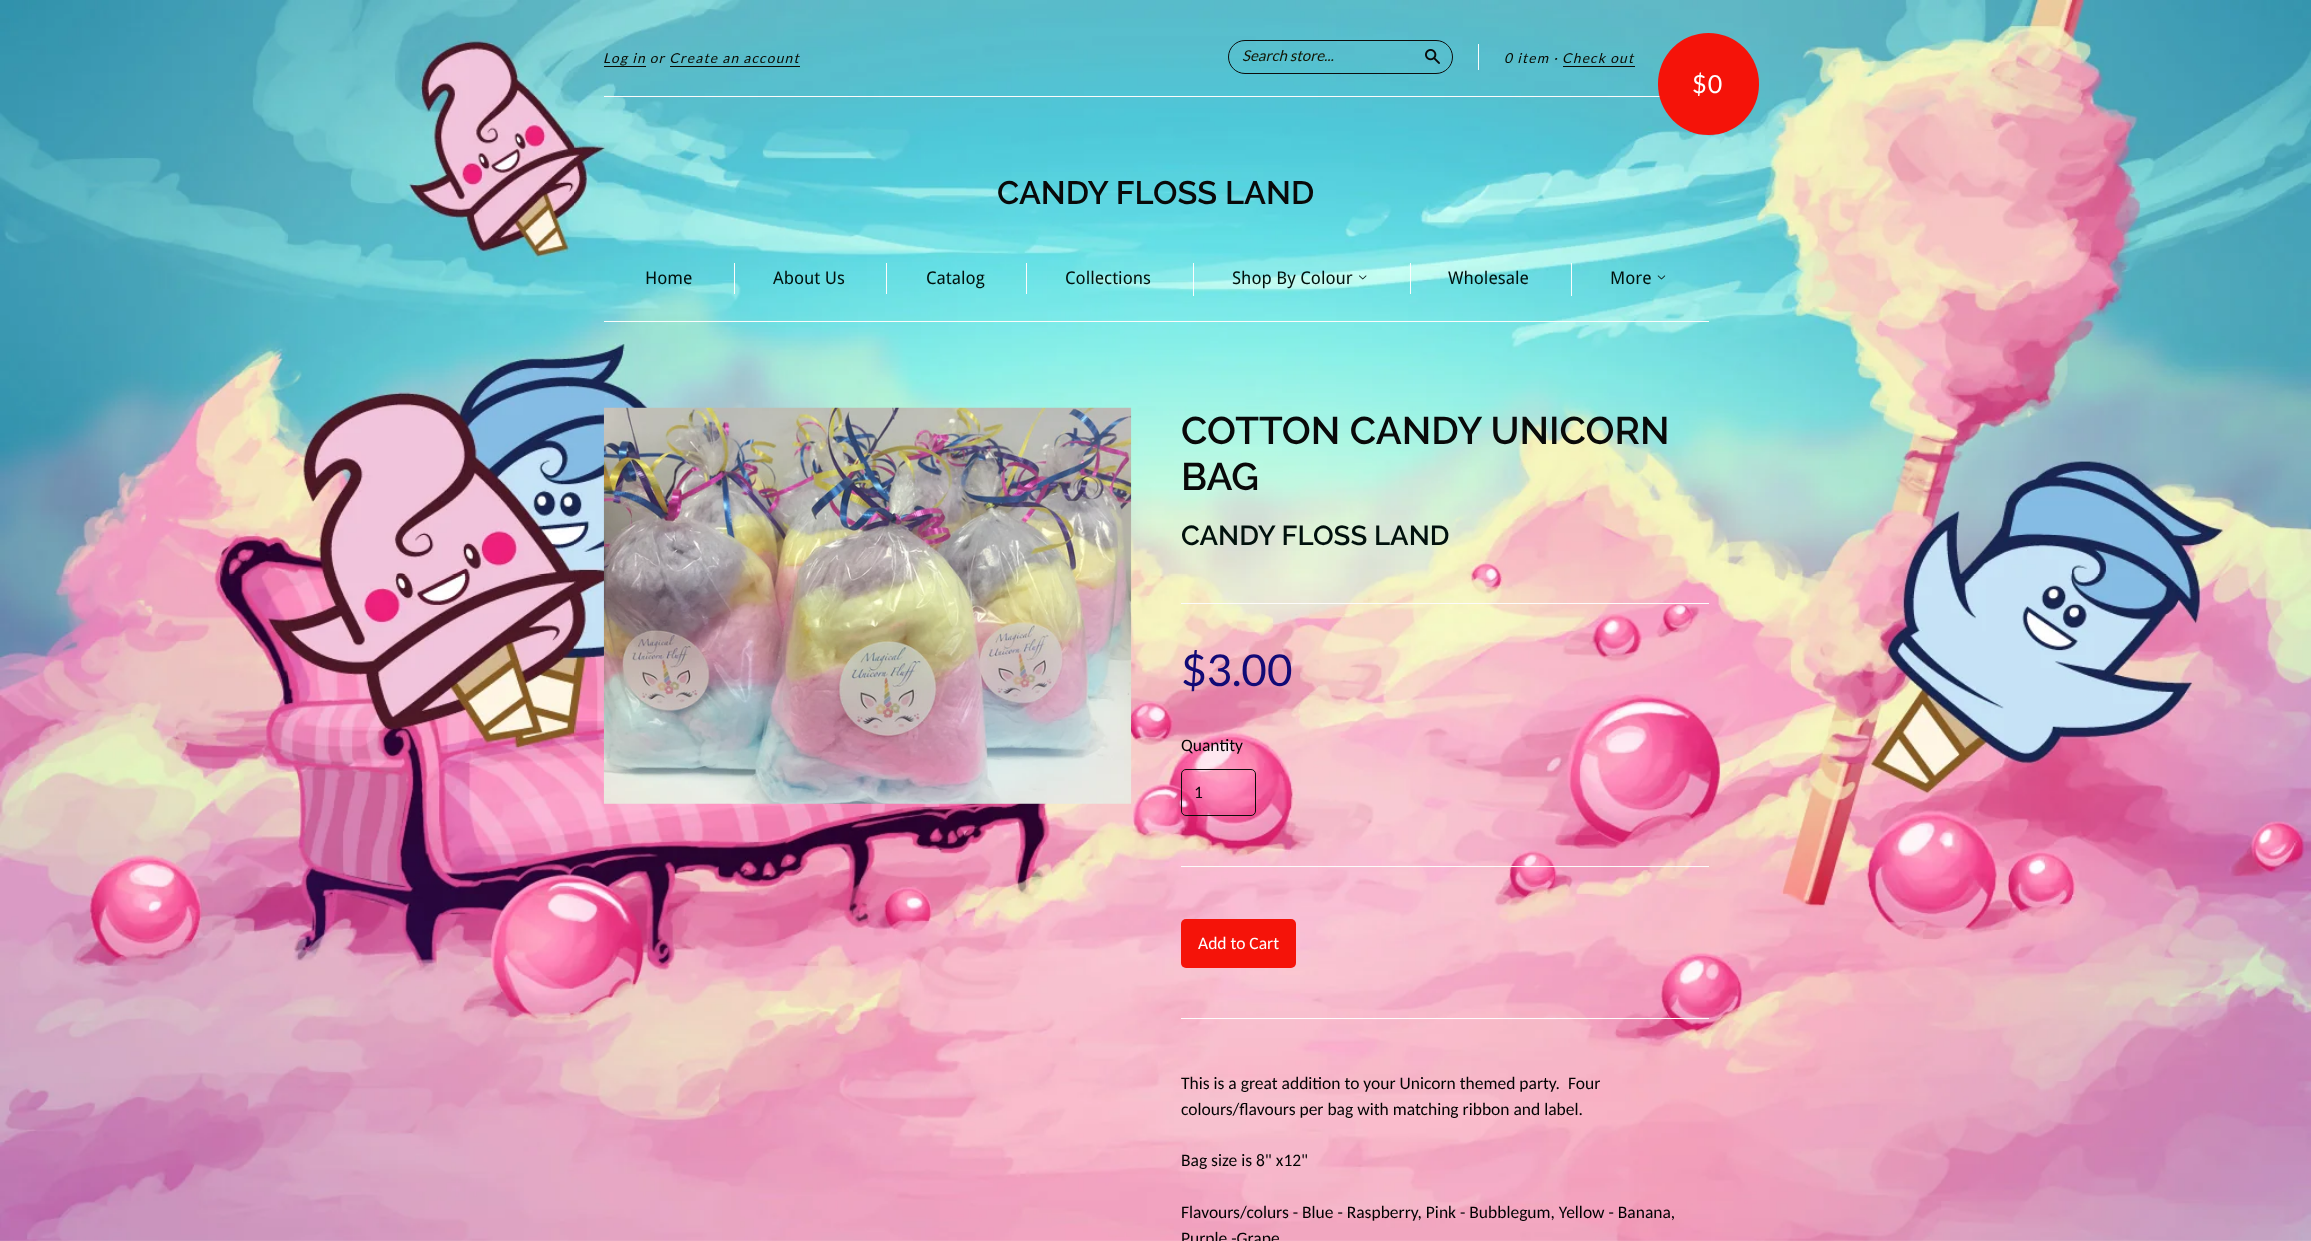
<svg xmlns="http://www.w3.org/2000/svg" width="2311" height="1241">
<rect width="100%" height="100%" fill="#fff"/>
<image x="0" y="0" width="2311" height="1241" href="media/1.png"/>
<rect x="604" y="321" width="1105" height="1" fill="#fcfcfc"/>
<rect x="604" y="96" width="1056" height="1" fill="#fcfcfc"/>
<text x="603" y="63" style="font-family:Lato;font-size:13.75px;font-style:italic;letter-spacing:1.25px;fill:#070901">Log in or Create an account</text>
<rect x="604" y="66" width="42" height="1" fill="#090a01"/>
<rect x="670" y="66" width="130" height="1" fill="#090a01"/>
<rect x="1228.5" y="40.5" width="224" height="33" rx="16.5" fill="none" stroke="#0c0c0b"/>
<text x="1242" y="61" style="font-family:Lato;font-size:15px;font-style:italic;fill:#121503">Search store...</text>
<image x="1425" y="49" width="15" height="15" href="media/2.png"/>
<rect x="1478" y="44" width="1" height="26" fill="#fcfcfc"/>
<text x="1504" y="63" style="font-family:Lato;font-size:13.75px;font-style:italic;letter-spacing:1.25px;fill:#070901">0 item · Check out</text>
<rect x="1563" y="66" width="72" height="1" fill="#090a01"/>
<rect x="1658" y="33" width="101" height="102" rx="50.5" fill="#f51309"/>
<text x="1692" y="93" style="font-family:Lato;font-size:25px;letter-spacing:1.25px;fill:#fff">$0</text>
<text x="997" y="204" style="font-family:Raleway;font-size:32.5px;font-weight:100;fill:#090909">CANDY FLOSS LAND</text>
<text x="645" y="284" style="font-family:Droid Sans;font-size:17.5px;fill:#01110d">Home</text>
<rect x="734" y="263" width="1" height="31" fill="#fcfcfc"/>
<text x="773" y="284" style="font-family:Droid Sans;font-size:17.5px;fill:#01110d">About Us</text>
<rect x="886" y="263" width="1" height="31" fill="#fcfcfc"/>
<text x="926" y="284" style="font-family:Droid Sans;font-size:17.5px;fill:#01110d">Catalog</text>
<rect x="1026" y="263" width="1" height="31" fill="#fcfcfc"/>
<text x="1065" y="284" style="font-family:Droid Sans;font-size:17.5px;fill:#01110d">Collections</text>
<rect x="1193" y="263" width="1" height="33" fill="#fcfcfc"/>
<text x="1232" y="284" style="font-family:Droid Sans;font-size:17.5px;fill:#01110d">Shop By Colour</text>
<image x="1359" y="275" width="8" height="5" href="media/3.png"/>
<rect x="1410" y="263" width="1" height="31" fill="#fcfcfc"/>
<text x="1448" y="284" style="font-family:Droid Sans;font-size:17.5px;fill:#01110d">Wholesale</text>
<rect x="1571" y="263" width="1" height="33" fill="#fcfcfc"/>
<text x="1610" y="284" style="font-family:Droid Sans;font-size:17.5px;fill:#01110d">More</text>
<image x="1657" y="275" width="9" height="5" href="media/4.png"/>
<image x="603" y="407" width="529" height="397" href="media/5.png"/>
<text x="1181" y="444" style="font-family:Raleway;font-size:38.5px;font-weight:100;fill:#090909">COTTON CANDY UNICORN</text>
<text x="1181" y="490" style="font-family:Raleway;font-size:38.5px;font-weight:100;fill:#090909">BAG</text>
<text x="1181" y="545" style="font-family:Raleway;font-size:27.5px;font-weight:100;fill:#01110d">CANDY FLOSS LAND</text>
<rect x="1181" y="603" width="528" height="1" fill="#fcfcfc"/>
<text x="1181" y="686" style="font-family:Lato;font-size:44px;fill:#120a76">$3.00</text>
<text x="1181" y="751" style="font-family:Carlito;font-size:17.5px;fill:#010202">Quantity</text>
<rect x="1181.5" y="769.5" width="74" height="46" rx="4.5" fill="none" stroke="#0c0c0b"/>
<text x="1194" y="798" style="font-family:Carlito;font-size:17.5px;fill:#090909">1</text>
<rect x="1181" y="866" width="528" height="1" fill="#fcfcfc"/>
<rect x="1181" y="919" width="115" height="49" rx="5" fill="#f51309"/>
<text x="1198" y="949" style="font-family:Carlito;font-size:17.5px;fill:#fff">Add to Cart</text>
<rect x="1181" y="1018" width="528" height="1" fill="#fcfcfc"/>
<text x="1181" y="1089" style="font-family:Carlito;font-size:17.5px;fill:#010202" xml:space="preserve">This is a great addition to your Unicorn themed party.  Four</text>
<text x="1181" y="1115" style="font-family:Carlito;font-size:17.5px;fill:#010202">colours/flavours per bag with matching ribbon and label.</text>
<text x="1181" y="1166" style="font-family:Carlito;font-size:17.5px;fill:#010202">Bag size is 8" x12"</text>
<text x="1181" y="1218" style="font-family:Carlito;font-size:17.5px;fill:#010202">Flavours/colurs - Blue - Raspberry, Pink - Bubblegum, Yellow - Banana,</text>
<text x="1181" y="1244" style="font-family:Carlito;font-size:17.5px;fill:#010202">Purple -Grape</text>
</svg>
